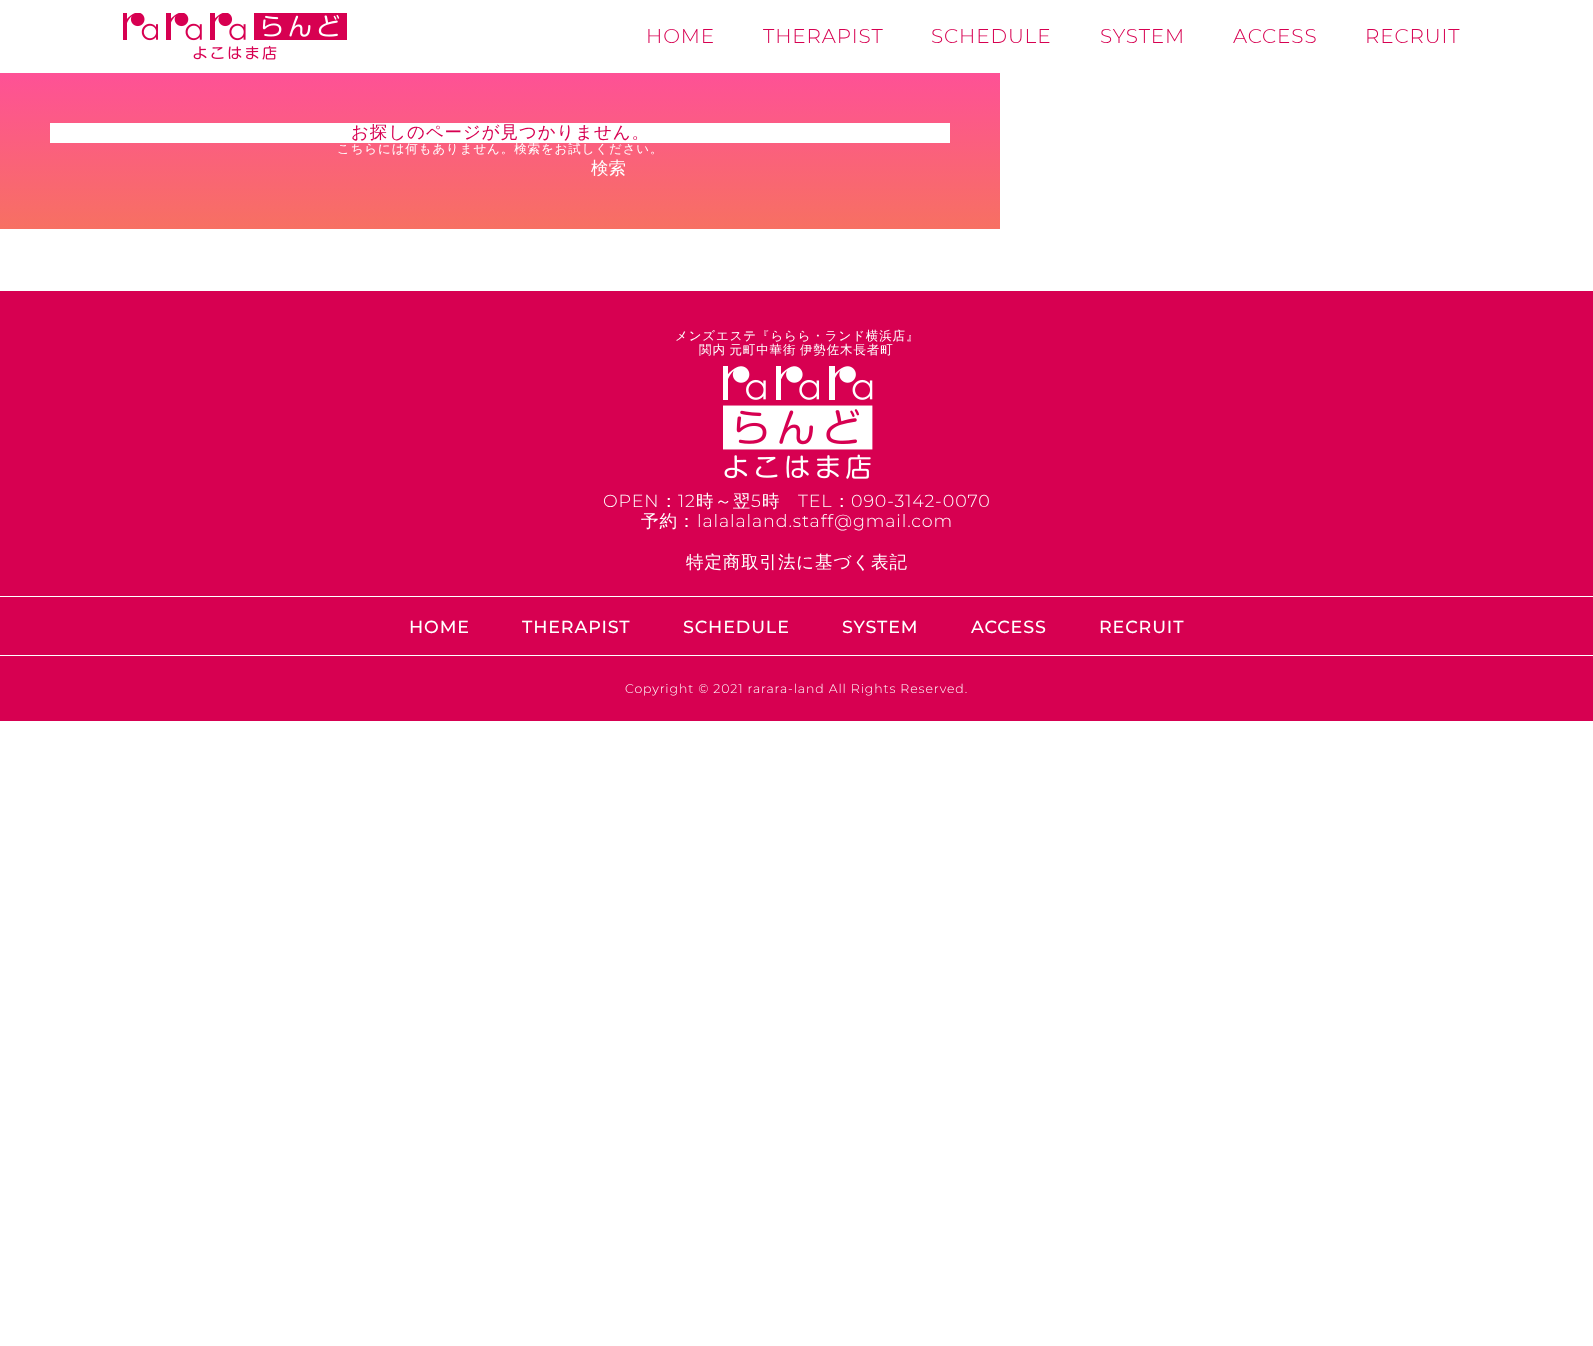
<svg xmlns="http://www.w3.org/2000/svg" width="1593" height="1346">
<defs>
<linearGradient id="g1" gradientUnits="userSpaceOnUse" x1="500" y1="229" x2="500" y2="73"><stop offset="0" stop-color="#f77062"/><stop offset="1" stop-color="#fe5196"/></linearGradient>
</defs>
<rect width="100%" height="100%" fill="#fff"/>
<image x="123" y="13" width="224" height="47" href="media/1.png"/>
<text x="646" y="43" style="font-family:Montserrat;font-size:20px;font-weight:100;letter-spacing:0.88px;fill:#d70051">HOME</text>
<text x="763" y="43" style="font-family:Montserrat;font-size:20px;font-weight:100;letter-spacing:0.88px;fill:#d70051">THERAPIST</text>
<text x="931" y="43" style="font-family:Montserrat;font-size:20px;font-weight:100;letter-spacing:0.88px;fill:#d70051">SCHEDULE</text>
<text x="1100" y="43" style="font-family:Montserrat;font-size:20px;font-weight:100;letter-spacing:0.88px;fill:#d70051">SYSTEM</text>
<text x="1233" y="43" style="font-family:Montserrat;font-size:20px;font-weight:100;letter-spacing:0.88px;fill:#d70051">ACCESS</text>
<text x="1365" y="43" style="font-family:Montserrat;font-size:20px;font-weight:100;letter-spacing:0.88px;fill:#d70051">RECRUIT</text>
<rect y="73" width="1000" height="156" fill="url(#g1)"/>
<rect x="50" y="123" width="900" height="20" fill="#fff"/>
<text x="351" y="138" style="font-family:WenQuanYi Zen Hei;font-size:17.5px;font-weight:500;letter-spacing:0.88px;fill:#d70051">お探しのページが見つかりません。</text>
<text x="337" y="153" style="font-family:WenQuanYi Zen Hei;font-size:12.5px;font-weight:500;letter-spacing:0.88px;fill:#fff">こちらには何もありません。検索をお試しください。</text>
<text x="591" y="174" style="font-family:WenQuanYi Zen Hei;font-size:17.5px;font-weight:500;fill:#fff">検索</text>
<rect y="291" width="1593" height="430" fill="#d70051"/>
<text x="675" y="340" style="font-family:WenQuanYi Zen Hei;font-size:12.5px;font-weight:500;letter-spacing:0.88px;fill:#fff">メンズエステ『ららら・ランド横浜店』</text>
<text x="699" y="354" word-spacing="-1" style="font-family:WenQuanYi Zen Hei;font-size:12.5px;font-weight:500;letter-spacing:0.88px;fill:#fff">関内 元町中華街 伊勢佐木長者町</text>
<image x="723" y="366" width="150" height="113" href="media/2.png"/>
<text x="603" y="507" style="font-family:Montserrat;font-size:17.5px;font-weight:100;letter-spacing:0.88px;fill:#fff">OPEN</text>
<text x="660" y="507" style="font-family:WenQuanYi Zen Hei;font-size:17.5px;font-weight:500;letter-spacing:0.88px;fill:#fff">：</text>
<text x="678" y="507" style="font-family:Montserrat;font-size:17.5px;font-weight:100;letter-spacing:0.88px;fill:#fff">12</text>
<text x="696" y="507" style="font-family:WenQuanYi Zen Hei;font-size:17.5px;font-weight:500;letter-spacing:0.88px;fill:#fff">時～翌</text>
<text x="751" y="507" style="font-family:Montserrat;font-size:17.5px;font-weight:100;letter-spacing:0.88px;fill:#fff">5</text>
<text x="762" y="507" style="font-family:WenQuanYi Zen Hei;font-size:17.5px;font-weight:500;letter-spacing:0.88px;fill:#fff">時</text>
<text x="798" y="507" style="font-family:Montserrat;font-size:17.5px;font-weight:100;letter-spacing:0.88px;fill:#fff">TEL</text>
<text x="833" y="507" style="font-family:WenQuanYi Zen Hei;font-size:17.5px;font-weight:500;letter-spacing:0.88px;fill:#fff">：</text>
<text x="851" y="507" style="font-family:Montserrat;font-size:17.5px;font-weight:100;letter-spacing:0.88px;fill:#fff">090-3142-0070</text>
<text x="641" y="527" style="font-family:WenQuanYi Zen Hei;font-size:17.5px;font-weight:500;letter-spacing:0.88px;fill:#fff">予約：</text>
<text x="697" y="527" style="font-family:Montserrat;font-size:17.5px;font-weight:100;letter-spacing:0.88px;fill:#fff">lalalaland.staff@gmail.com</text>
<text x="686" y="568" style="font-family:WenQuanYi Zen Hei;font-size:17.5px;font-weight:500;letter-spacing:0.88px;fill:#fff">特定商取引法に基づく表記</text>
<rect y="596" width="1593" height="1" fill="#fff"/>
<rect y="655" width="1593" height="1" fill="#fff"/>
<text x="409" y="633" style="font-family:'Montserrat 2';font-size:17.5px;font-weight:100;letter-spacing:0.88px;fill:#fff">HOME</text>
<text x="522" y="633" style="font-family:'Montserrat 2';font-size:17.5px;font-weight:100;letter-spacing:0.88px;fill:#fff">THERAPIST</text>
<text x="683" y="633" style="font-family:'Montserrat 2';font-size:17.5px;font-weight:100;letter-spacing:0.88px;fill:#fff">SCHEDULE</text>
<text x="842" y="633" style="font-family:'Montserrat 2';font-size:17.5px;font-weight:100;letter-spacing:0.88px;fill:#fff">SYSTEM</text>
<text x="971" y="633" style="font-family:'Montserrat 2';font-size:17.5px;font-weight:100;letter-spacing:0.88px;fill:#fff">ACCESS</text>
<text x="1099" y="633" style="font-family:'Montserrat 2';font-size:17.5px;font-weight:100;letter-spacing:0.88px;fill:#fff">RECRUIT</text>
<text x="625" y="693" style="font-family:Montserrat;font-size:12.5px;font-weight:100;letter-spacing:0.88px;fill:#fff">Copyright ©︎ 2021 rarara-land All Rights Reserved.</text>
</svg>
